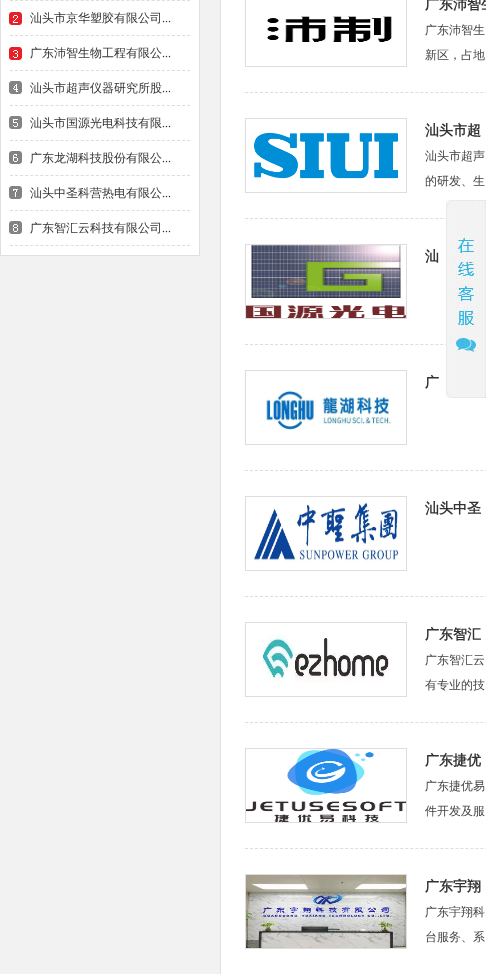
<svg xmlns="http://www.w3.org/2000/svg" width="486" height="974">
<rect width="100%" height="100%" fill="#f2f2f2"/>
<rect x="1" width="198" height="255" fill="#fff"/>
<image x="9" y="9" width="13" height="225" href="media/1.png"/>
<rect x="199" width="1" height="256" fill="#dfdfdf"/>
<rect y="255" width="200" height="1" fill="#dfdfdf"/>
<rect width="1" height="256" fill="#dfdfdf"/>
<path d="M10 .5h180" fill="none" stroke="#ddd" stroke-dasharray="3 2.06"/>
<path d="M10 35.5h180" fill="none" stroke="#ddd" stroke-dasharray="3 2.06"/>
<text x="30" y="22" style="font-family:WenQuanYi Zen Hei;font-size:12px;font-weight:500;fill:#333">汕头市京华塑胶有限公司</text>
<text x="162" y="22" style="font-family:Liberation Serif;font-size:12px;fill:#333">...</text>
<path d="M10 70.5h180" fill="none" stroke="#ddd" stroke-dasharray="3 2.06"/>
<text x="30" y="57" style="font-family:WenQuanYi Zen Hei;font-size:12px;font-weight:500;fill:#333">广东沛智生物工程有限公</text>
<text x="162" y="57" style="font-family:Liberation Serif;font-size:12px;fill:#333">...</text>
<path d="M10 105.5h180" fill="none" stroke="#ddd" stroke-dasharray="3 2.06"/>
<text x="30" y="92" style="font-family:WenQuanYi Zen Hei;font-size:12px;font-weight:500;fill:#333">汕头市超声仪器研究所股</text>
<text x="162" y="92" style="font-family:Liberation Serif;font-size:12px;fill:#333">...</text>
<path d="M10 140.5h180" fill="none" stroke="#ddd" stroke-dasharray="3 2.06"/>
<text x="30" y="127" style="font-family:WenQuanYi Zen Hei;font-size:12px;font-weight:500;fill:#333">汕头市国源光电科技有限</text>
<text x="162" y="127" style="font-family:Liberation Serif;font-size:12px;fill:#333">...</text>
<path d="M10 175.5h180" fill="none" stroke="#ddd" stroke-dasharray="3 2.06"/>
<text x="30" y="162" style="font-family:WenQuanYi Zen Hei;font-size:12px;font-weight:500;fill:#333">广东龙湖科技股份有限公</text>
<text x="162" y="162" style="font-family:Liberation Serif;font-size:12px;fill:#333">...</text>
<path d="M10 210.5h180" fill="none" stroke="#ddd" stroke-dasharray="3 2.06"/>
<text x="30" y="197" style="font-family:WenQuanYi Zen Hei;font-size:12px;font-weight:500;fill:#333">汕头中圣科营热电有限公</text>
<text x="162" y="197" style="font-family:Liberation Serif;font-size:12px;fill:#333">...</text>
<path d="M10 245.5h180" fill="none" stroke="#ddd" stroke-dasharray="3 2.06"/>
<text x="30" y="232" style="font-family:WenQuanYi Zen Hei;font-size:12px;font-weight:500;fill:#333">广东智汇云科技有限公司</text>
<text x="162" y="232" style="font-family:Liberation Serif;font-size:12px;fill:#333">...</text>
<rect x="220.5" y="-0.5" width="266" height="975" fill="#fff" stroke="#dfdfdf"/>
<path d="M245 92.5h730" fill="none" stroke="#ddd" stroke-dasharray="3 2.01"/>
<rect x="245.5" y="-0.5" width="161" height="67" fill="none" stroke="#ddd"/>
<image x="267" y="15" width="125" height="27" href="media/2.png"/>
<text x="425" y="9" style="font-family:WenQuanYi Zen Hei;font-size:14px;font-weight:bold;fill:#333">广东沛智生</text>
<text x="425" y="34" style="font-family:WenQuanYi Zen Hei;font-size:12px;font-weight:500;fill:#444">广东沛智生</text>
<text x="425" y="59" style="font-family:WenQuanYi Zen Hei;font-size:12px;font-weight:500;fill:#444">新区，占地</text>
<path d="M245 218.5h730" fill="none" stroke="#ddd" stroke-dasharray="3 2.01"/>
<rect x="245.5" y="118.5" width="161" height="74" fill="none" stroke="#ddd"/>
<image x="254" y="132" width="144" height="47" href="media/3.png"/>
<text x="425" y="135" style="font-family:WenQuanYi Zen Hei;font-size:14px;font-weight:bold;fill:#333">汕头市超</text>
<text x="425" y="160" style="font-family:WenQuanYi Zen Hei;font-size:12px;font-weight:500;fill:#444">汕头市超声</text>
<text x="425" y="185" style="font-family:WenQuanYi Zen Hei;font-size:12px;font-weight:500;fill:#444">的研发、生</text>
<path d="M245 344.5h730" fill="none" stroke="#ddd" stroke-dasharray="3 2.01"/>
<rect x="245.5" y="244.5" width="161" height="74" fill="none" stroke="#ddd"/>
<image x="246" y="245" width="160" height="73" href="media/4.png"/>
<text x="425" y="261" style="font-family:WenQuanYi Zen Hei;font-size:14px;font-weight:bold;fill:#333">汕</text>
<path d="M245 470.5h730" fill="none" stroke="#ddd" stroke-dasharray="3 2.01"/>
<rect x="245.5" y="370.5" width="161" height="74" fill="none" stroke="#ddd"/>
<image x="266" y="390" width="126" height="41" href="media/5.png"/>
<text x="425" y="387" style="font-family:WenQuanYi Zen Hei;font-size:14px;font-weight:bold;fill:#333">广</text>
<path d="M245 596.5h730" fill="none" stroke="#ddd" stroke-dasharray="3 2.01"/>
<rect x="245.5" y="496.5" width="161" height="74" fill="none" stroke="#ddd"/>
<image x="253" y="502" width="146" height="60" href="media/6.png"/>
<text x="425" y="513" style="font-family:WenQuanYi Zen Hei;font-size:14px;font-weight:bold;fill:#333">汕头中圣</text>
<path d="M245 722.5h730" fill="none" stroke="#ddd" stroke-dasharray="3 2.01"/>
<rect x="245.5" y="622.5" width="161" height="74" fill="none" stroke="#ddd"/>
<image x="263" y="634" width="126" height="49" href="media/7.png"/>
<text x="425" y="639" style="font-family:WenQuanYi Zen Hei;font-size:14px;font-weight:bold;fill:#333">广东智汇</text>
<text x="425" y="664" style="font-family:WenQuanYi Zen Hei;font-size:12px;font-weight:500;fill:#444">⼴东智汇云</text>
<text x="425" y="689" style="font-family:WenQuanYi Zen Hei;font-size:12px;font-weight:500;fill:#444">有专业的技</text>
<path d="M245 848.5h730" fill="none" stroke="#ddd" stroke-dasharray="3 2.01"/>
<rect x="245.5" y="748.5" width="161" height="74" fill="none" stroke="#ddd"/>
<image x="246" y="749" width="160" height="73" href="media/8.png"/>
<text x="425" y="765" style="font-family:WenQuanYi Zen Hei;font-size:14px;font-weight:bold;fill:#333">广东捷优</text>
<text x="425" y="790" style="font-family:WenQuanYi Zen Hei;font-size:12px;font-weight:500;fill:#444">广东捷优易</text>
<text x="425" y="815" style="font-family:WenQuanYi Zen Hei;font-size:12px;font-weight:500;fill:#444">件开发及服</text>
<rect x="245.5" y="874.5" width="161" height="74" fill="none" stroke="#ddd"/>
<image x="246" y="875" width="160" height="73" href="media/9.png"/>
<text x="425" y="891" style="font-family:WenQuanYi Zen Hei;font-size:14px;font-weight:bold;fill:#333">广东宇翔</text>
<text x="425" y="916" style="font-family:WenQuanYi Zen Hei;font-size:12px;font-weight:500;fill:#444">广东宇翔科</text>
<text x="425" y="941" style="font-family:WenQuanYi Zen Hei;font-size:12px;font-weight:500;fill:#444">台服务、系</text>
<image x="446" y="200" width="40" height="198" href="media/10.png"/>
</svg>
